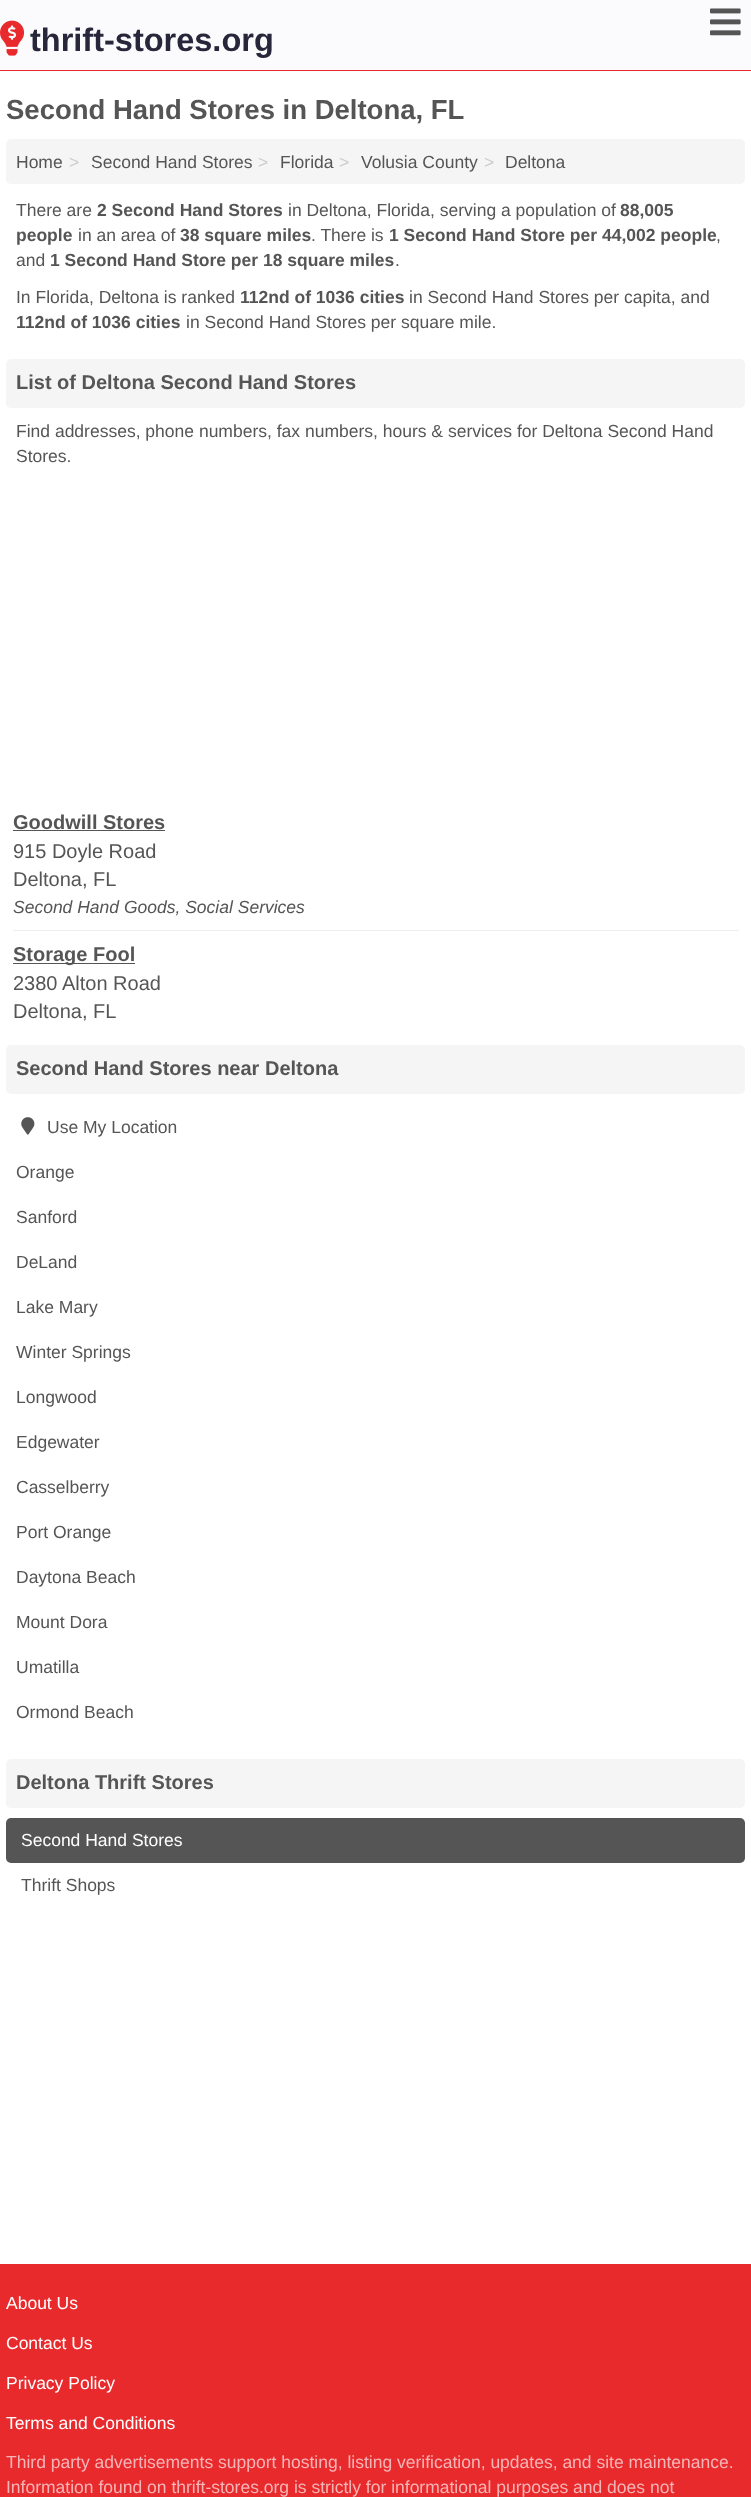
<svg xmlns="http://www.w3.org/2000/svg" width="751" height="2497">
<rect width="100%" height="100%" fill="#fff"/>
<rect width="751" height="70" fill="#fbfafc"/>
<rect y="70" width="751" height="1" fill="#e92a2d"/>
<image x="710" y="8" width="31" height="28" href="media/1.png"/>
<image x="0" y="20" width="25" height="36" href="media/2.png"/>
<text x="30" y="51" style="font-family:Liberation Sans;font-size:32.5px;font-weight:bold;fill:#27263a">thrift-stores.org</text>
<text x="6" y="119" style="font-family:Liberation Sans;font-size:27.5px;font-weight:bold;fill:#555">Second Hand Stores in Deltona, FL</text>
<rect x="6" y="139" width="739" height="45" rx="5" fill="#f5f5f5"/>
<text x="16" y="168" style="font-family:Liberation Sans;font-size:17.5px;fill:#555">Home</text>
<text x="69" y="168" style="font-family:Liberation Sans;font-size:17.5px;fill:#ccc">&gt;</text>
<text x="91" y="168" style="font-family:Liberation Sans;font-size:17.5px;fill:#555">Second Hand Stores</text>
<text x="258" y="168" style="font-family:Liberation Sans;font-size:17.5px;fill:#ccc">&gt;</text>
<text x="280" y="168" style="font-family:Liberation Sans;font-size:17.5px;fill:#555">Florida</text>
<text x="339" y="168" style="font-family:Liberation Sans;font-size:17.5px;fill:#ccc">&gt;</text>
<text x="361" y="168" style="font-family:Liberation Sans;font-size:17.5px;fill:#555">Volusia County</text>
<text x="484" y="168" style="font-family:Liberation Sans;font-size:17.5px;fill:#ccc">&gt;</text>
<text x="505" y="168" style="font-family:Liberation Sans;font-size:17.5px;fill:#555">Deltona</text>
<text x="16" y="216" style="font-family:Liberation Sans;font-size:17.5px;fill:#555">There are</text>
<text x="97" y="216" style="font-family:Liberation Sans;font-size:17.5px;font-weight:bold;fill:#555">2 Second Hand Stores</text>
<text x="288" y="216" style="font-family:Liberation Sans;font-size:17.5px;fill:#555">in Deltona, Florida, serving a population of</text>
<text x="620" y="216" style="font-family:Liberation Sans;font-size:17.5px;font-weight:bold;fill:#555">88,005</text>
<text x="16" y="241" style="font-family:Liberation Sans;font-size:17.5px;font-weight:bold;fill:#555">people</text>
<text x="78" y="241" style="font-family:Liberation Sans;font-size:17.5px;fill:#555">in an area of</text>
<text x="180" y="241" style="font-family:Liberation Sans;font-size:17.5px;font-weight:bold;fill:#555">38 square miles</text>
<text x="311" y="241" style="font-family:Liberation Sans;font-size:17.5px;fill:#555">. There is</text>
<text x="389" y="241" style="font-family:Liberation Sans;font-size:17.5px;font-weight:bold;fill:#555">1 Second Hand Store per 44,002 people</text>
<text x="716" y="241" style="font-family:Liberation Sans;font-size:17.5px;fill:#555">,</text>
<text x="16" y="266" style="font-family:Liberation Sans;font-size:17.5px;fill:#555">and</text>
<text x="50" y="266" style="font-family:Liberation Sans;font-size:17.5px;font-weight:bold;fill:#555">1 Second Hand Store per 18 square miles</text>
<text x="395" y="266" style="font-family:Liberation Sans;font-size:17.5px;fill:#555">.</text>
<text x="16" y="303" style="font-family:Liberation Sans;font-size:17.5px;fill:#555">In Florida, Deltona is ranked</text>
<text x="240" y="303" style="font-family:Liberation Sans;font-size:17.5px;font-weight:bold;fill:#555">112nd of 1036 cities</text>
<text x="409" y="303" style="font-family:Liberation Sans;font-size:17.5px;fill:#555">in Second Hand Stores per capita, and</text>
<text x="16" y="328" style="font-family:Liberation Sans;font-size:17.5px;font-weight:bold;fill:#555">112nd of 1036 cities</text>
<text x="186" y="328" style="font-family:Liberation Sans;font-size:17.5px;fill:#555">in Second Hand Stores per square mile.</text>
<rect x="6" y="359" width="739" height="49" rx="5" fill="#f5f5f5"/>
<text x="16" y="389" style="font-family:Liberation Sans;font-size:20px;font-weight:bold;fill:#555">List of Deltona Second Hand Stores</text>
<text x="16" y="437" style="font-family:Liberation Sans;font-size:17.5px;fill:#555">Find addresses, phone numbers, fax numbers, hours &amp; services for Deltona Second Hand</text>
<text x="16" y="462" style="font-family:Liberation Sans;font-size:17.5px;fill:#555">Stores.</text>
<text x="13" y="829" style="font-family:Liberation Sans;font-size:20px;font-weight:bold;fill:#555">Goodwill Stores</text>
<rect x="13" y="830" width="152" height="1" fill="#555"/>
<text x="13" y="858" style="font-family:Liberation Sans;font-size:20px;fill:#555">915 Doyle Road</text>
<text x="13" y="886" style="font-family:Liberation Sans;font-size:20px;fill:#555">Deltona, FL</text>
<text x="13" y="913" style="font-family:Liberation Sans;font-size:17.5px;font-style:italic;fill:#555">Second Hand Goods, Social Services</text>
<rect x="13" y="930" width="726" height="1" fill="#eee"/>
<rect x="13" y="963" width="122" height="1" fill="#555"/>
<text x="13" y="961" style="font-family:Liberation Sans;font-size:20px;font-weight:bold;fill:#555">Storage Fool</text>
<text x="13" y="990" style="font-family:Liberation Sans;font-size:20px;fill:#555">2380 Alton Road</text>
<text x="13" y="1018" style="font-family:Liberation Sans;font-size:20px;fill:#555">Deltona, FL</text>
<rect x="6" y="1045" width="739" height="49" rx="5" fill="#f5f5f5"/>
<text x="16" y="1075" style="font-family:Liberation Sans;font-size:20px;font-weight:bold;fill:#555">Second Hand Stores near Deltona</text>
<image x="21" y="1117" width="14" height="18" href="media/3.png"/>
<text x="47" y="1133" style="font-family:Liberation Sans;font-size:17.5px;fill:#555">Use My Location</text>
<text x="16" y="1178" style="font-family:Liberation Sans;font-size:17.5px;fill:#555">Orange</text>
<text x="16" y="1223" style="font-family:Liberation Sans;font-size:17.5px;fill:#555">Sanford</text>
<text x="16" y="1268" style="font-family:Liberation Sans;font-size:17.5px;fill:#555">DeLand</text>
<text x="16" y="1313" style="font-family:Liberation Sans;font-size:17.5px;fill:#555">Lake Mary</text>
<text x="16" y="1358" style="font-family:Liberation Sans;font-size:17.5px;fill:#555">Winter Springs</text>
<text x="16" y="1403" style="font-family:Liberation Sans;font-size:17.5px;fill:#555">Longwood</text>
<text x="16" y="1448" style="font-family:Liberation Sans;font-size:17.5px;fill:#555">Edgewater</text>
<text x="16" y="1493" style="font-family:Liberation Sans;font-size:17.5px;fill:#555">Casselberry</text>
<text x="16" y="1538" style="font-family:Liberation Sans;font-size:17.5px;fill:#555">Port Orange</text>
<text x="16" y="1583" style="font-family:Liberation Sans;font-size:17.5px;fill:#555">Daytona Beach</text>
<text x="16" y="1628" style="font-family:Liberation Sans;font-size:17.5px;fill:#555">Mount Dora</text>
<text x="16" y="1673" style="font-family:Liberation Sans;font-size:17.5px;fill:#555">Umatilla</text>
<text x="16" y="1718" style="font-family:Liberation Sans;font-size:17.5px;fill:#555">Ormond Beach</text>
<rect x="6" y="1759" width="739" height="49" rx="5" fill="#f5f5f5"/>
<text x="16" y="1789" style="font-family:Liberation Sans;font-size:20px;font-weight:bold;fill:#555">Deltona Thrift Stores</text>
<rect x="6" y="1818" width="739" height="45" rx="5" fill="#555"/>
<text x="21" y="1846" style="font-family:Liberation Sans;font-size:17.5px;fill:#fff">Second Hand Stores</text>
<text x="21" y="1891" style="font-family:Liberation Sans;font-size:17.5px;fill:#555">Thrift Shops</text>
<rect y="2264" width="751" height="233" fill="#e92a2d"/>
<text x="6" y="2309" style="font-family:Liberation Sans;font-size:17.5px;fill:#fff">About Us</text>
<text x="6" y="2349" style="font-family:Liberation Sans;font-size:17.5px;fill:#fff">Contact Us</text>
<text x="6" y="2389" style="font-family:Liberation Sans;font-size:17.5px;fill:#fff">Privacy Policy</text>
<text x="6" y="2429" style="font-family:Liberation Sans;font-size:17.5px;fill:#fff">Terms and Conditions</text>
<text x="6" y="2468" style="font-family:Liberation Sans;font-size:17.5px;fill:#f5b5b7">Third party advertisements support hosting, listing verification, updates, and site maintenance.</text>
<text x="6" y="2493" style="font-family:Liberation Sans;font-size:17.5px;fill:#f5b5b7">Information found on thrift-stores.org is strictly for informational purposes and does not</text>
</svg>
